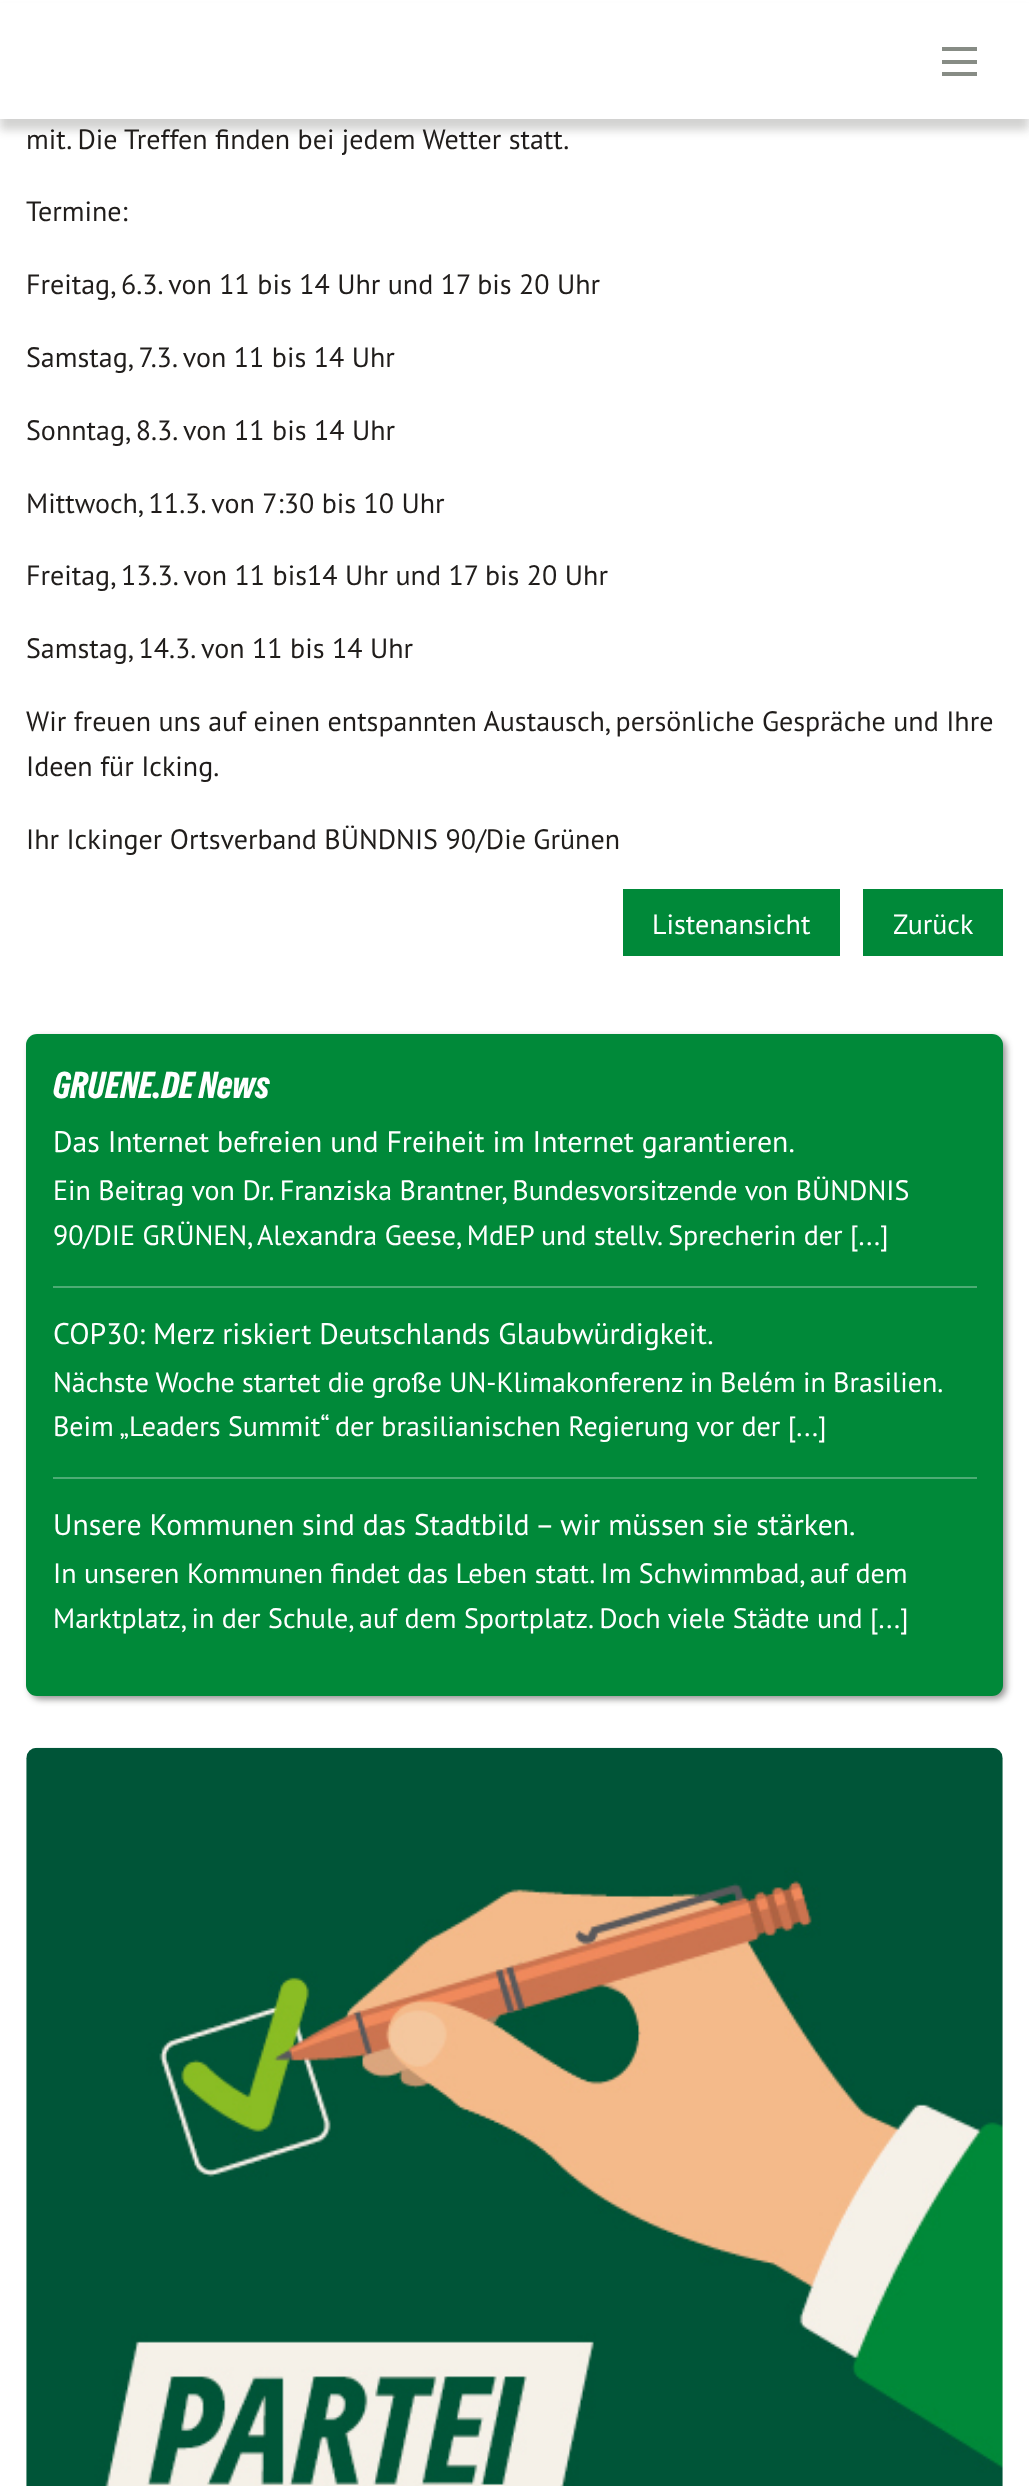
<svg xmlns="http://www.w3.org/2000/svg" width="1029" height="2486">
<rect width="100%" height="100%" fill="#fff"/>
<rect y="11" width="1029" height="119" fill="#201d1b33" filter="blur(5px)"/>
<rect y="3" width="1029" height="116" fill="#fff"/>
<rect x="942" y="72" width="35" height="4" fill="#878c85"/>
<rect x="942" y="60" width="35" height="4" fill="#878c85"/>
<rect x="942" y="47" width="35" height="4" fill="#878c85"/>
<text x="26" y="149" style="font-family:PT Sans;font-size:28px;fill:#201d1b">mit. Die Treffen finden bei jedem Wetter statt.</text>
<text x="26" y="221" style="font-family:PT Sans;font-size:28px;fill:#201d1b">Termine:</text>
<text x="26" y="294" style="font-family:PT Sans;font-size:28px;fill:#201d1b">Freitag, 6.3. von 11 bis 14 Uhr und 17 bis 20 Uhr</text>
<text x="26" y="367" style="font-family:PT Sans;font-size:28px;fill:#201d1b">Samstag, 7.3. von 11 bis 14 Uhr</text>
<text x="26" y="440" style="font-family:PT Sans;font-size:28px;fill:#201d1b">Sonntag, 8.3. von 11 bis 14 Uhr</text>
<text x="26" y="513" style="font-family:PT Sans;font-size:28px;fill:#201d1b">Mittwoch, 11.3. von 7:30 bis 10 Uhr</text>
<text x="26" y="585" style="font-family:PT Sans;font-size:28px;fill:#201d1b">Freitag, 13.3. von 11 bis14 Uhr und 17 bis 20 Uhr</text>
<text x="26" y="658" style="font-family:PT Sans;font-size:28px;fill:#201d1b">Samstag, 14.3. von 11 bis 14 Uhr</text>
<text x="26" y="731" style="font-family:PT Sans;font-size:28px;fill:#201d1b">Wir freuen uns auf einen entspannten Austausch, persönliche Gespräche und Ihre</text>
<text x="26" y="776" style="font-family:PT Sans;font-size:28px;fill:#201d1b">Ideen für Icking.</text>
<text x="26" y="849" style="font-family:PT Sans;font-size:28px;fill:#201d1b">Ihr Ickinger Ortsverband BÜNDNIS 90/Die Grünen</text>
<rect x="623" y="889" width="217" height="67" fill="#008939"/>
<text x="652" y="934" style="font-family:PT Sans;font-size:28px;fill:#fff">Listenansicht</text>
<rect x="863" y="889" width="140" height="67" fill="#008939"/>
<text x="893" y="934" style="font-family:PT Sans;font-size:28px;fill:#fff">Zurück</text>
<rect x="30" y="1038" width="976" height="661" rx="11" fill="#201d1b80" filter="blur(3.5px)"/>
<rect x="26" y="1034" width="977" height="662" rx="11" fill="#008939"/>
<text x="53" y="1098" style="font-family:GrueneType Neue;font-size:35px;fill:#fff">GRUENE.DE News</text>
<text x="53" y="1152" style="font-family:PT Sans;font-size:29.75px;fill:#fff">Das Internet befreien und Freiheit im Internet garantieren.</text>
<text x="53" y="1200" style="font-family:PT Sans;font-size:28px;fill:#fff">Ein Beitrag von Dr. Franziska Brantner, Bundesvorsitzende von BÜNDNIS</text>
<text x="53" y="1245" style="font-family:PT Sans;font-size:28px;fill:#fff">90/DIE GRÜNEN, Alexandra Geese, MdEP und stellv. Sprecherin der [...]</text>
<rect x="53" y="1286" width="924" height="2" fill="#4dac74"/>
<text x="53" y="1344" style="font-family:PT Sans;font-size:29.75px;fill:#fff">COP30: Merz riskiert Deutschlands Glaubwürdigkeit.</text>
<text x="53" y="1392" word-spacing="-0.25" style="font-family:PT Sans;font-size:28px;fill:#fff">Nächste Woche startet die große UN-Klimakonferenz in Belém in Brasilien.</text>
<text x="53" y="1436" style="font-family:PT Sans;font-size:28px;fill:#fff">Beim „Leaders Summit“ der brasilianischen Regierung vor der [...]</text>
<rect x="53" y="1477" width="924" height="2" fill="#4dac74"/>
<text x="53" y="1535" style="font-family:PT Sans;font-size:29.75px;fill:#fff">Unsere Kommunen sind das Stadtbild – wir müssen sie stärken.</text>
<text x="53" y="1583" style="font-family:PT Sans;font-size:28px;fill:#fff">In unseren Kommunen findet das Leben statt. Im Schwimmbad, auf dem</text>
<text x="53" y="1628" style="font-family:PT Sans;font-size:28px;fill:#fff">Marktplatz, in der Schule, auf dem Sportplatz. Doch viele Städte und [...]</text>
<image x="26" y="1747" width="977" height="739" href="media/1.png"/>
</svg>
